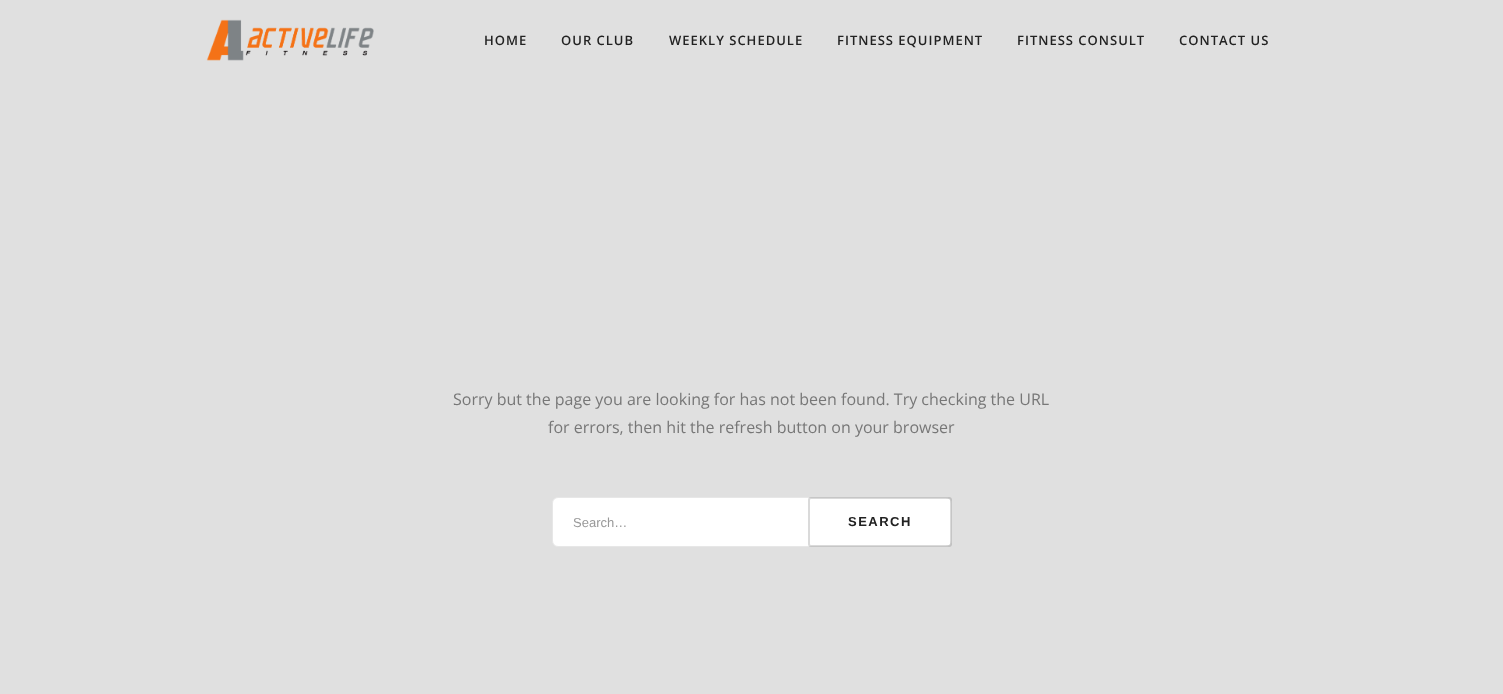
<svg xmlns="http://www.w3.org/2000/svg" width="1503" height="694">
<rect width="100%" height="100%" fill="#e0e0e0"/>
<image x="206" y="19" width="168" height="42" href="media/1.png"/>
<text x="484" y="45" style="font-family:Open Sans;font-size:13px;font-weight:600;letter-spacing:1px;fill:#222">HOME</text>
<text x="561" y="45" style="font-family:Open Sans;font-size:13px;font-weight:600;letter-spacing:1px;fill:#222">OUR CLUB</text>
<text x="669" y="45" style="font-family:Open Sans;font-size:13px;font-weight:600;letter-spacing:1px;fill:#222">WEEKLY SCHEDULE</text>
<text x="837" y="45" style="font-family:Open Sans;font-size:13px;font-weight:600;letter-spacing:1px;fill:#222">FITNESS EQUIPMENT</text>
<text x="1017" y="45" style="font-family:Open Sans;font-size:13px;font-weight:600;letter-spacing:1px;fill:#222">FITNESS CONSULT</text>
<text x="1179" y="45" style="font-family:Open Sans;font-size:13px;font-weight:600;letter-spacing:1px;fill:#222">CONTACT US</text>
<text x="453" y="405" style="font-family:Open Sans;font-size:16px;fill:#777">Sorry but the page you are looking for has not been found. Try checking the URL</text>
<text x="548" y="433" style="font-family:Open Sans;font-size:16px;fill:#777">for errors, then hit the refresh button on your browser</text>
<rect x="552.5" y="497.5" width="399" height="49" rx="5.5" fill="#fff" stroke="#e7e7e7"/>
<text x="573" y="527" style="font-family:Liberation Sans;font-size:13px;fill:#999">Search…</text>
<rect x="809" y="498" width="142" height="48" rx="2" fill="none" stroke="#44444433" stroke-width="2"/>
<text x="848" y="526" style="font-family:Liberation Sans;font-size:13px;font-weight:bold;letter-spacing:1.5px;fill:#222">SEARCH</text>
</svg>
